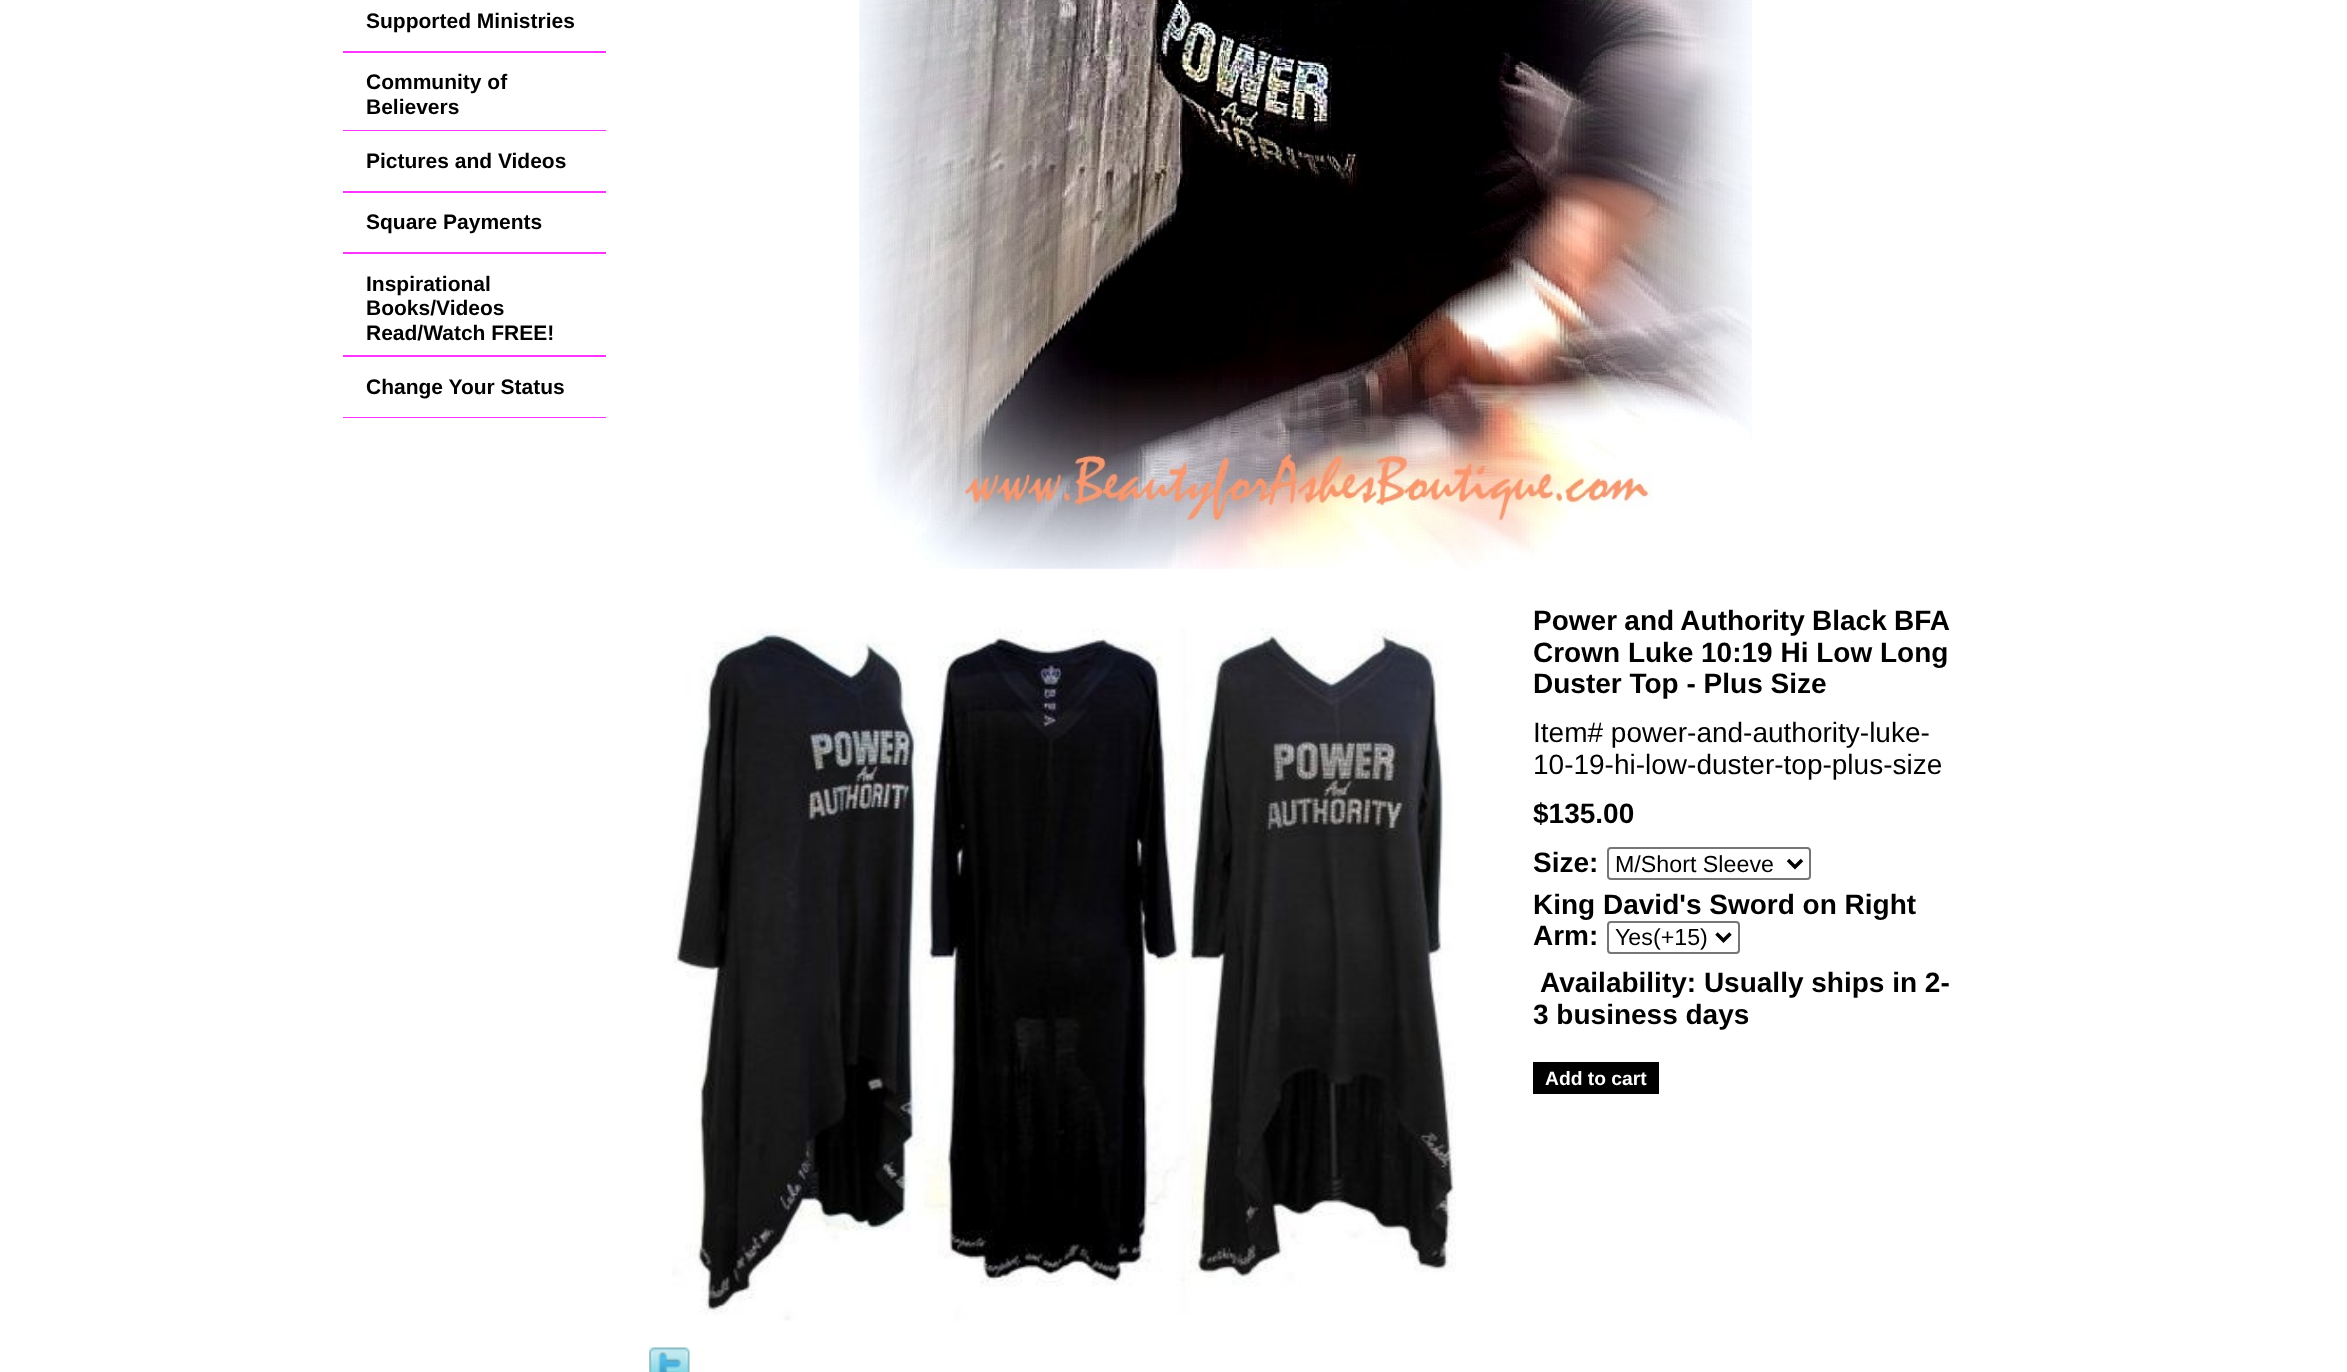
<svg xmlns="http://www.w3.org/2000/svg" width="2347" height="1372">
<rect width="100%" height="100%" fill="#fff"/>
<rect x="343" y="51" width="263" height="2" fill="#f3f"/>
<text x="366" y="28" style="font-family:Liberation Sans;font-size:21px;font-weight:bold;fill:#000">Supported Ministries</text>
<rect x="343" y="130" width="263" height="1" fill="#f3f"/>
<text x="366" y="89" style="font-family:Liberation Sans;font-size:21px;font-weight:bold;fill:#000">Community of</text>
<text x="366" y="114" style="font-family:Liberation Sans;font-size:21px;font-weight:bold;fill:#000">Believers</text>
<rect x="343" y="191" width="263" height="2" fill="#f3f"/>
<text x="366" y="168" style="font-family:Liberation Sans;font-size:21px;font-weight:bold;fill:#000">Pictures and Videos</text>
<rect x="343" y="252" width="263" height="2" fill="#f3f"/>
<text x="366" y="229" style="font-family:Liberation Sans;font-size:21px;font-weight:bold;fill:#000">Square Payments</text>
<rect x="343" y="355" width="263" height="2" fill="#f3f"/>
<text x="366" y="291" style="font-family:Liberation Sans;font-size:21px;font-weight:bold;fill:#000">Inspirational</text>
<text x="366" y="315" style="font-family:Liberation Sans;font-size:21px;font-weight:bold;fill:#000">Books/Videos</text>
<text x="366" y="340" style="font-family:Liberation Sans;font-size:21px;font-weight:bold;fill:#000">Read/Watch FREE!</text>
<rect x="343" y="417" width="263" height="1" fill="#f3f"/>
<text x="366" y="394" style="font-family:Liberation Sans;font-size:21px;font-weight:bold;fill:#000">Change Your Status</text>
<image x="859" y="0" width="893" height="569" href="media/1.png"/>
<image x="672" y="627" width="784" height="694" href="media/2.png"/>
<text x="1533" y="630" word-spacing="-0.5" style="font-family:Liberation Sans;font-size:28px;font-weight:bold;fill:#000">Power and Authority Black BFA</text>
<text x="1533" y="662" style="font-family:Liberation Sans;font-size:28px;font-weight:bold;fill:#000">Crown Luke 10:19 Hi Low Long</text>
<text x="1533" y="693" style="font-family:Liberation Sans;font-size:28px;font-weight:bold;fill:#000">Duster Top - Plus Size</text>
<text x="1533" y="742" style="font-family:Liberation Sans;font-size:28px;fill:#000">Item# power-and-authority-luke-</text>
<text x="1533" y="774" style="font-family:Liberation Sans;font-size:28px;fill:#000">10-19-hi-low-duster-top-plus-size</text>
<text x="1533" y="823" style="font-family:Liberation Sans;font-size:28px;font-weight:bold;fill:#000">$135.00</text>
<text x="1533" y="872" style="font-family:Liberation Sans;font-size:28px;font-weight:bold;fill:#000">Size:</text>
<rect x="1608" y="848" width="202" height="31" rx="3" fill="none" stroke="#767676" stroke-width="2"/>
<path d="M1788 860l7 7l7-7" fill="none" stroke="#000" stroke-width="3.5"/>
<text x="1615" y="872" style="font-family:Liberation Sans;font-size:23.25px;fill:#000">M/Short Sleeve</text>
<text x="1533" y="914" style="font-family:Liberation Sans;font-size:28px;font-weight:bold;fill:#000">King David's Sword on Right</text>
<text x="1533" y="945" style="font-family:Liberation Sans;font-size:28px;font-weight:bold;fill:#000">Arm:</text>
<rect x="1608" y="922" width="131" height="31" rx="3" fill="none" stroke="#767676" stroke-width="2"/>
<path d="M1716.5 933.5l7 7l7-7" fill="none" stroke="#000" stroke-width="3.5"/>
<text x="1615" y="945" style="font-family:Liberation Sans;font-size:23.25px;fill:#000">Yes(+15)</text>
<text x="1540" y="992" style="font-family:Liberation Sans;font-size:28px;font-weight:bold;fill:#000">Availability: Usually ships in 2-</text>
<text x="1533" y="1024" style="font-family:Liberation Sans;font-size:28px;font-weight:bold;fill:#000">3 business days</text>
<rect x="1533" y="1062" width="126" height="32" fill="#000"/>
<text x="1545" y="1085" style="font-family:Liberation Sans;font-size:19.25px;font-weight:bold;fill:#fff">Add to cart</text>
<image x="649" y="1347" width="41" height="25" href="media/3.png"/>
</svg>
